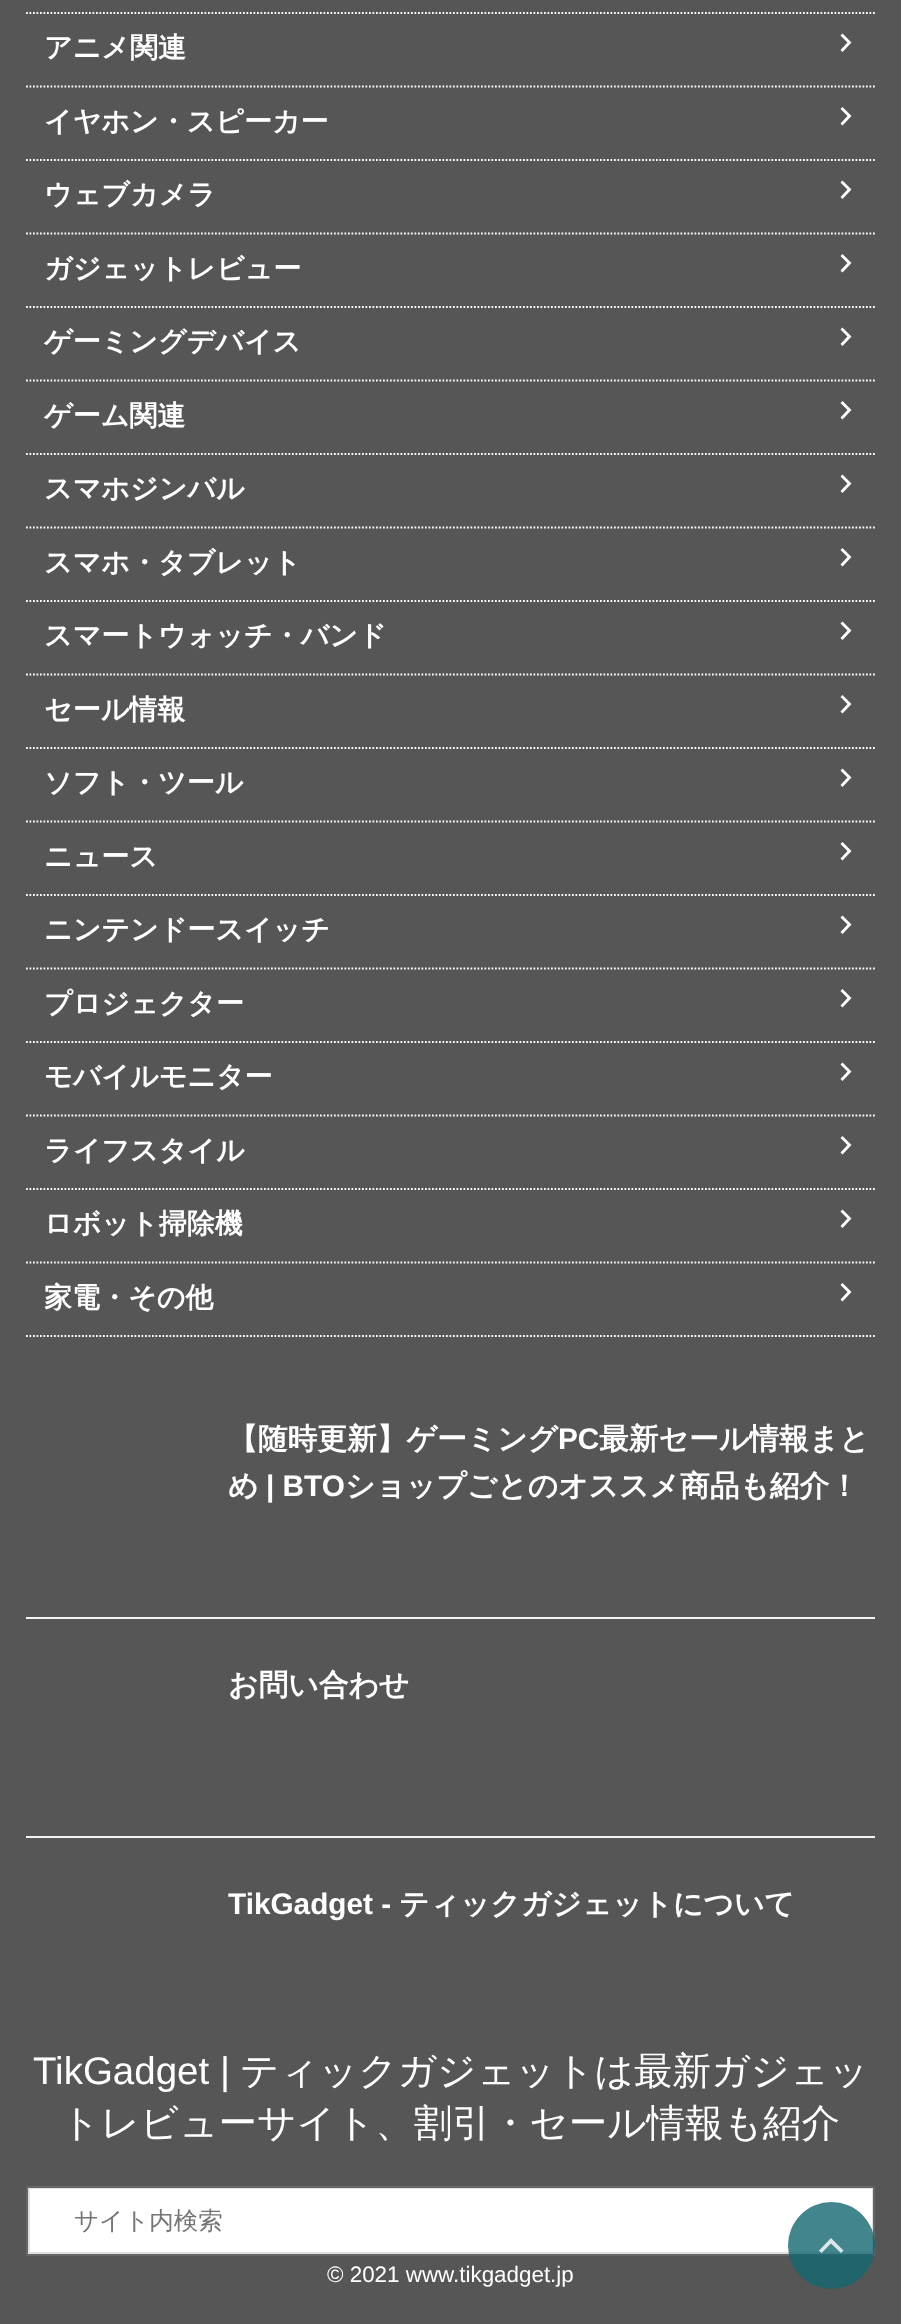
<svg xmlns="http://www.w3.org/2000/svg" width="901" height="2324">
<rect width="100%" height="100%" fill="#565656"/>
<path d="M26 13h849" fill="none" stroke="#fff" stroke-width="1.8" stroke-dasharray="1.75 1.75"/>
<path d="M26 86.5h849" fill="none" stroke="#fff" stroke-width="1.8" stroke-dasharray="1.75 1.75"/>
<text x="44" y="57" style="font-family:WenQuanYi Zen Hei;font-size:28px;font-weight:bold;fill:#fff">アニメ関連</text>
<path d="M847.5 42.5l-7-7l2-2l9 9l-9 9.5l-2-2z" fill="#fff"/>
<path d="M26 160h849" fill="none" stroke="#fff" stroke-width="1.8" stroke-dasharray="1.75 1.75"/>
<text x="44" y="131" style="font-family:WenQuanYi Zen Hei;font-size:28px;font-weight:bold;fill:#fff">イヤホン・スピーカー</text>
<path d="M847.5 116l-7-7l2-2l9 9l-9 9.5l-2-2z" fill="#fff"/>
<path d="M26 233.5h849" fill="none" stroke="#fff" stroke-width="1.8" stroke-dasharray="1.75 1.75"/>
<text x="44" y="204" style="font-family:WenQuanYi Zen Hei;font-size:28px;font-weight:bold;fill:#fff">ウェブカメラ</text>
<path d="M847.5 189.5l-7-7l2-2l9 9l-9 9.5l-2-2z" fill="#fff"/>
<path d="M26 307h849" fill="none" stroke="#fff" stroke-width="1.8" stroke-dasharray="1.75 1.75"/>
<text x="44" y="278" style="font-family:WenQuanYi Zen Hei;font-size:28px;font-weight:bold;fill:#fff">ガジェットレビュー</text>
<path d="M847.5 263l-7-7l2-2l9 9l-9 9.5l-2-2z" fill="#fff"/>
<path d="M26 380.5h849" fill="none" stroke="#fff" stroke-width="1.8" stroke-dasharray="1.75 1.75"/>
<text x="44" y="351" style="font-family:WenQuanYi Zen Hei;font-size:28px;font-weight:bold;fill:#fff">ゲーミングデバイス</text>
<path d="M847.5 336.5l-7-7l2-2l9 9l-9 9.5l-2-2z" fill="#fff"/>
<path d="M26 454h849" fill="none" stroke="#fff" stroke-width="1.8" stroke-dasharray="1.75 1.75"/>
<text x="44" y="425" style="font-family:WenQuanYi Zen Hei;font-size:28px;font-weight:bold;fill:#fff">ゲーム関連</text>
<path d="M847.5 410l-7-7l2-2l9 9l-9 9.5l-2-2z" fill="#fff"/>
<path d="M26 527.5h849" fill="none" stroke="#fff" stroke-width="1.8" stroke-dasharray="1.75 1.75"/>
<text x="44" y="498" style="font-family:WenQuanYi Zen Hei;font-size:28px;font-weight:bold;fill:#fff">スマホジンバル</text>
<path d="M847.5 483.5l-7-7l2-2l9 9l-9 9.5l-2-2z" fill="#fff"/>
<path d="M26 601h849" fill="none" stroke="#fff" stroke-width="1.8" stroke-dasharray="1.75 1.75"/>
<text x="44" y="572" style="font-family:WenQuanYi Zen Hei;font-size:28px;font-weight:bold;fill:#fff">スマホ・タブレット</text>
<path d="M847.5 557l-7-7l2-2l9 9l-9 9.5l-2-2z" fill="#fff"/>
<path d="M26 674.5h849" fill="none" stroke="#fff" stroke-width="1.8" stroke-dasharray="1.75 1.75"/>
<text x="44" y="645" style="font-family:WenQuanYi Zen Hei;font-size:28px;font-weight:bold;fill:#fff">スマートウォッチ・バンド</text>
<path d="M847.5 630.5l-7-7l2-2l9 9l-9 9.5l-2-2z" fill="#fff"/>
<path d="M26 748h849" fill="none" stroke="#fff" stroke-width="1.8" stroke-dasharray="1.75 1.75"/>
<text x="44" y="719" style="font-family:WenQuanYi Zen Hei;font-size:28px;font-weight:bold;fill:#fff">セール情報</text>
<path d="M847.5 704l-7-7l2-2l9 9l-9 9.5l-2-2z" fill="#fff"/>
<path d="M26 821.5h849" fill="none" stroke="#fff" stroke-width="1.8" stroke-dasharray="1.75 1.75"/>
<text x="44" y="792" style="font-family:WenQuanYi Zen Hei;font-size:28px;font-weight:bold;fill:#fff">ソフト・ツール</text>
<path d="M847.5 777.5l-7-7l2-2l9 9l-9 9.5l-2-2z" fill="#fff"/>
<path d="M26 895h849" fill="none" stroke="#fff" stroke-width="1.8" stroke-dasharray="1.75 1.75"/>
<text x="44" y="866" style="font-family:WenQuanYi Zen Hei;font-size:28px;font-weight:bold;fill:#fff">ニュース</text>
<path d="M847.5 851l-7-7l2-2l9 9l-9 9.5l-2-2z" fill="#fff"/>
<path d="M26 968.5h849" fill="none" stroke="#fff" stroke-width="1.8" stroke-dasharray="1.75 1.75"/>
<text x="44" y="939" style="font-family:WenQuanYi Zen Hei;font-size:28px;font-weight:bold;fill:#fff">ニンテンドースイッチ</text>
<path d="M847.5 924.5l-7-7l2-2l9 9l-9 9.5l-2-2z" fill="#fff"/>
<path d="M26 1042h849" fill="none" stroke="#fff" stroke-width="1.8" stroke-dasharray="1.75 1.75"/>
<text x="44" y="1013" style="font-family:WenQuanYi Zen Hei;font-size:28px;font-weight:bold;fill:#fff">プロジェクター</text>
<path d="M847.5 998l-7-7l2-2l9 9l-9 9.5l-2-2z" fill="#fff"/>
<path d="M26 1115.5h849" fill="none" stroke="#fff" stroke-width="1.8" stroke-dasharray="1.75 1.75"/>
<text x="44" y="1086" style="font-family:WenQuanYi Zen Hei;font-size:28px;font-weight:bold;fill:#fff">モバイルモニター</text>
<path d="M847.5 1071.5l-7-7l2-2l9 9l-9 9.5l-2-2z" fill="#fff"/>
<path d="M26 1189h849" fill="none" stroke="#fff" stroke-width="1.8" stroke-dasharray="1.75 1.75"/>
<text x="44" y="1160" style="font-family:WenQuanYi Zen Hei;font-size:28px;font-weight:bold;fill:#fff">ライフスタイル</text>
<path d="M847.5 1145l-7-7l2-2l9 9l-9 9.5l-2-2z" fill="#fff"/>
<path d="M26 1262.5h849" fill="none" stroke="#fff" stroke-width="1.8" stroke-dasharray="1.75 1.75"/>
<text x="44" y="1233" style="font-family:WenQuanYi Zen Hei;font-size:28px;font-weight:bold;fill:#fff">ロボット掃除機</text>
<path d="M847.5 1218.5l-7-7l2-2l9 9l-9 9.5l-2-2z" fill="#fff"/>
<path d="M26 1336h849" fill="none" stroke="#fff" stroke-width="1.8" stroke-dasharray="1.75 1.75"/>
<text x="44" y="1307" style="font-family:WenQuanYi Zen Hei;font-size:28px;font-weight:bold;fill:#fff">家電・その他</text>
<path d="M847.5 1292l-7-7l2-2l9 9l-9 9.5l-2-2z" fill="#fff"/>
<rect x="26" y="1617" width="849" height="2" fill="#f3f3f3"/>
<text x="228" y="1449" style="font-family:WenQuanYi Zen Hei;font-size:29.75px;font-weight:bold;fill:#fff">【随時更新】ゲーミング</text>
<text x="558" y="1449" style="font-family:Liberation Sans;font-size:29.75px;font-weight:bold;fill:#fff">PC</text>
<text x="599" y="1449" style="font-family:WenQuanYi Zen Hei;font-size:29.75px;font-weight:bold;fill:#fff">最新セール情報まと</text>
<text x="228" y="1496" style="font-family:WenQuanYi Zen Hei;font-size:29.75px;font-weight:bold;fill:#fff">め</text>
<text x="266" y="1496" style="font-family:Liberation Sans;font-size:29.75px;font-weight:bold;fill:#fff">| BTO</text>
<text x="345" y="1496" style="font-family:WenQuanYi Zen Hei;font-size:29.75px;font-weight:bold;fill:#fff">ショップごとのオススメ商品も紹介！</text>
<rect x="26" y="1836" width="849" height="2" fill="#f3f3f3"/>
<text x="228" y="1695" style="font-family:WenQuanYi Zen Hei;font-size:29.75px;font-weight:bold;fill:#fff">お問い合わせ</text>
<text x="228" y="1914" style="font-family:Liberation Sans;font-size:29.75px;font-weight:bold;fill:#fff">TikGadget -</text>
<text x="399" y="1914" style="font-family:WenQuanYi Zen Hei;font-size:29.75px;font-weight:bold;fill:#fff">ティックガジェットについて</text>
<text x="33" y="2084" style="font-family:Liberation Sans;font-size:38.5px;fill:#fff">TikGadget |</text>
<text x="240" y="2084" style="font-family:WenQuanYi Zen Hei;font-size:38.5px;font-weight:500;fill:#fff">ティックガジェットは最新ガジェッ</text>
<text x="61" y="2136" style="font-family:WenQuanYi Zen Hei;font-size:38.5px;font-weight:500;fill:#fff">トレビューサイト、割引・セール情報も紹介</text>
<rect x="27" y="2187" width="847" height="68" fill="none" stroke="#666" stroke-width="2"/>
<rect x="29" y="2189" width="843" height="64" fill="none" stroke="#e0e0e0" stroke-width="2"/>
<rect x="30" y="2189" width="842" height="63" fill="#fff"/>
<text x="74" y="2229" style="font-family:WenQuanYi Zen Hei;font-size:24.5px;font-weight:500;fill:#757575">サイト内検索</text>
<text x="327" y="2282" style="font-family:Liberation Sans;font-size:22.4px;fill:#fff">© 2021 www.tikgadget.jp</text>
<circle cx="831.5" cy="2245.5" r="43.5" fill="#146670cc"/>
<path d="M831 2243.5l-9.5 9.5l-2.5-2.5l12-12.5l12.5 12.5l-2.5 2.5z" fill="#ffffffcc"/>
</svg>
